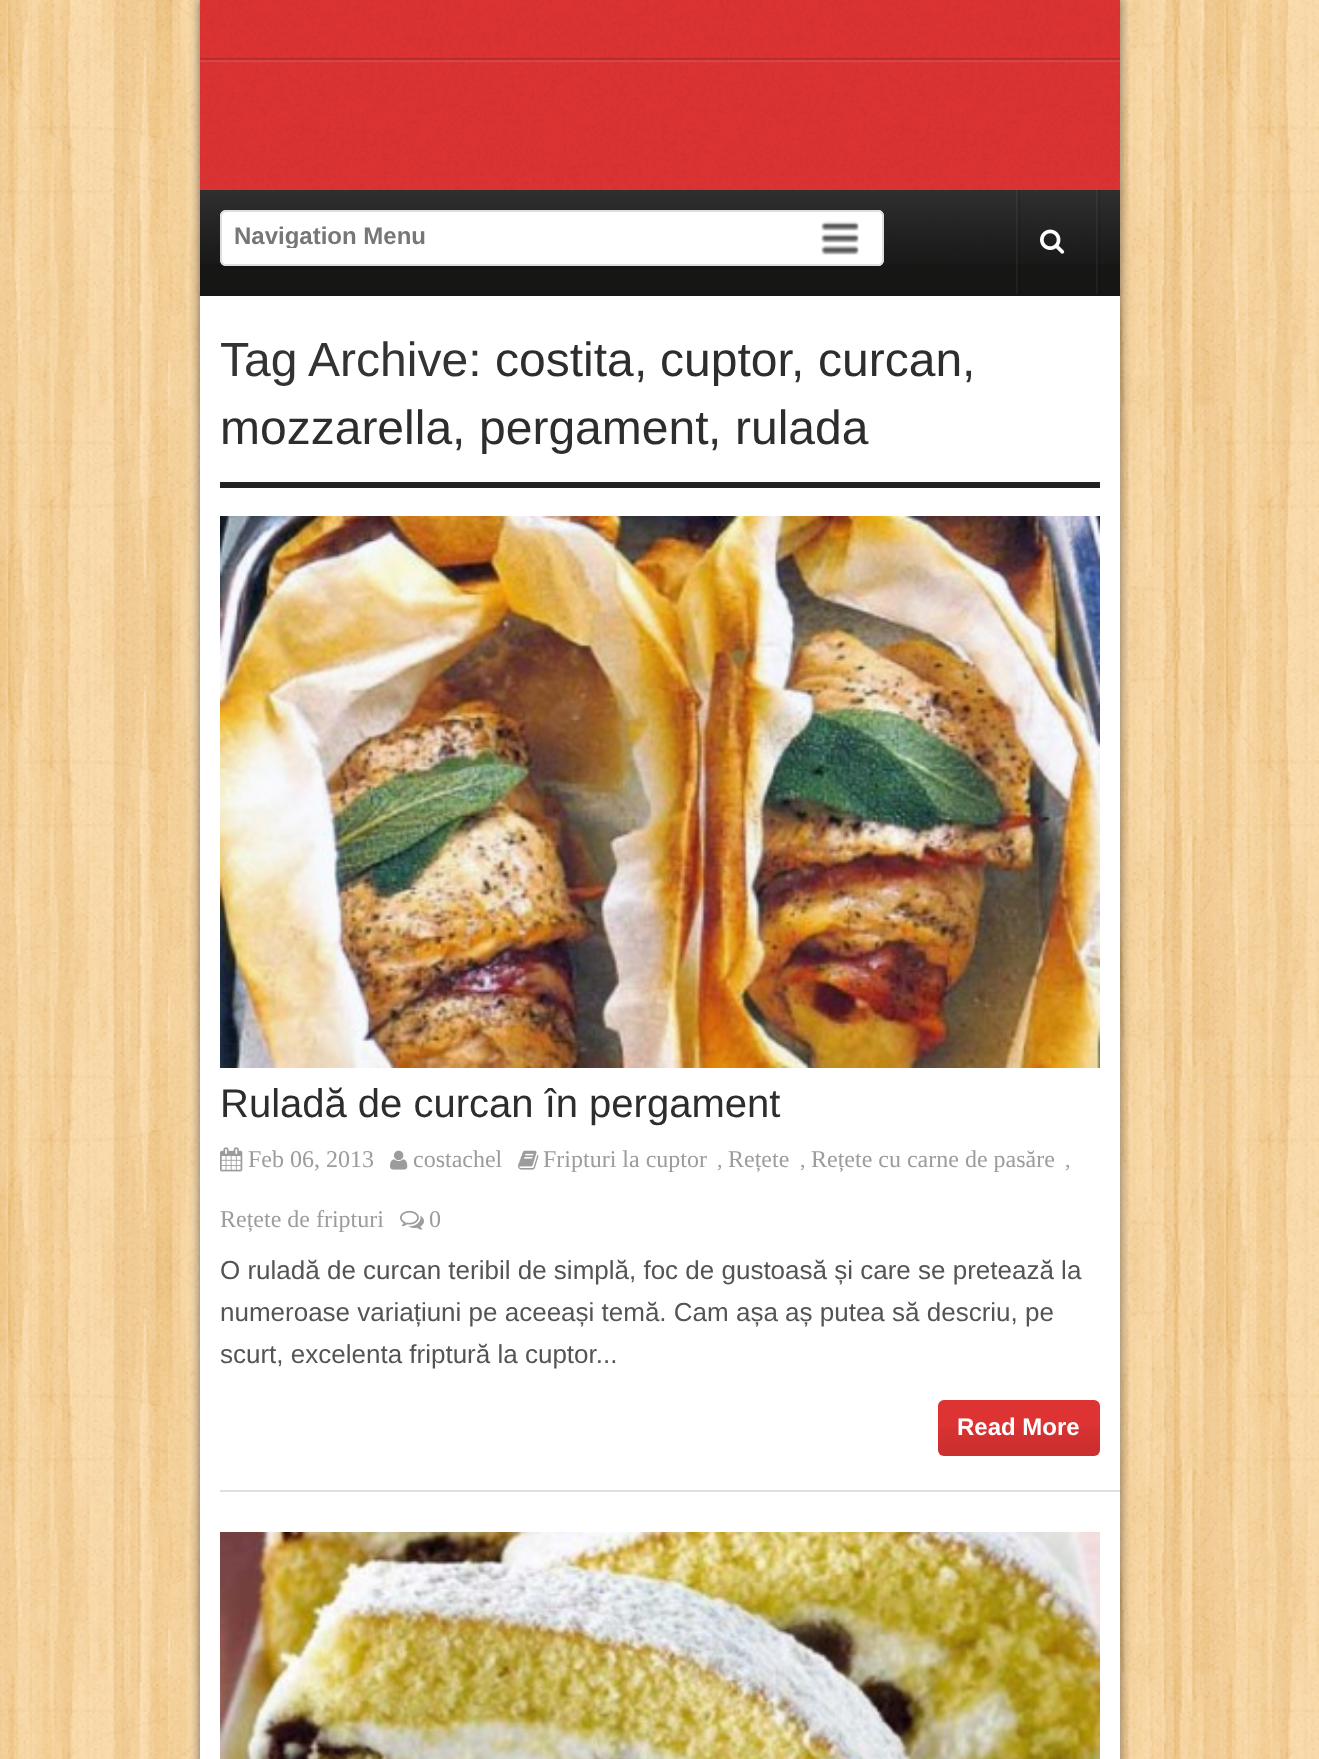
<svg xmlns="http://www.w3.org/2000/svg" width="1319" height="1759">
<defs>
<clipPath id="clip1"><rect x="234" y="224" width="722" height="24"/></clipPath>
</defs>
<rect width="100%" height="100%" fill="#fff"/>
<image x="0" y="0" width="1319" height="1759" href="media/1.png"/>
<rect x="198" y="-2" width="924" height="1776" fill="#00000066" filter="blur(5px)"/>
<rect x="200" y="296" width="920" height="1463" fill="#fff"/>
<rect x="200" width="920" height="190" fill="#d33"/>
<image x="200" y="0" width="920" height="190" href="media/2.png"/>
<image x="200" y="58" width="920" height="4" href="media/3.png"/>
<rect x="200" y="264" width="920" height="32" fill="#161615"/>
<image x="200" y="190" width="920" height="74" href="media/4.png"/>
<rect x="220" y="210" width="664" height="56" rx="6" fill="#fff"/>
<image x="821" y="210" width="61" height="56" href="media/5.png"/>
<rect x="221" y="211" width="662" height="54" rx="5" fill="none" stroke="#dedede" stroke-width="2"/>
<g clip-path="url(#clip1)">
<text x="234" y="244" style="font-family:Liberation Sans;font-size:24px;font-weight:bold;fill:#777">Navigation Menu</text>
</g>
<image x="1016" y="190" width="4" height="104" href="media/6.png"/>
<image x="1096" y="190" width="4" height="104" href="media/7.png"/>
<image x="1040" y="229" width="25" height="25" href="media/8.png"/>
<rect x="220" y="482" width="880" height="6" fill="#222"/>
<text x="220" y="376" style="font-family:Liberation Sans;font-size:48px;fill:#333">Tag Archive:</text>
<text x="495" y="376" style="font-family:Liberation Sans;font-size:48px;fill:#2d2d2d">costita</text>
<text x="634" y="376" style="font-family:Liberation Sans;font-size:48px;fill:#333">,</text>
<text x="660" y="376" style="font-family:Liberation Sans;font-size:48px;fill:#2d2d2d">cuptor</text>
<text x="791" y="376" style="font-family:Liberation Sans;font-size:48px;fill:#333">,</text>
<text x="818" y="376" style="font-family:Liberation Sans;font-size:48px;fill:#2d2d2d">curcan</text>
<text x="962" y="376" style="font-family:Liberation Sans;font-size:48px;fill:#333">,</text>
<text x="220" y="444" style="font-family:Liberation Sans;font-size:48px;fill:#2d2d2d">mozzarella</text>
<text x="452" y="444" style="font-family:Liberation Sans;font-size:48px;fill:#333">,</text>
<text x="479" y="444" style="font-family:Liberation Sans;font-size:48px;fill:#2d2d2d">pergament</text>
<text x="708" y="444" style="font-family:Liberation Sans;font-size:48px;fill:#333">,</text>
<text x="735" y="444" style="font-family:Liberation Sans;font-size:48px;fill:#2d2d2d">rulada</text>
<rect x="220" y="1490" width="900" height="2" fill="#e0e0e0"/>
<image x="220" y="516" width="880" height="552" href="media/9.png"/>
<text x="220" y="1117" style="font-family:Liberation Sans;font-size:40px;fill:#2d2d2d">Ruladă de curcan în pergament</text>
<image x="518" y="1150" width="21" height="20" href="media/10.png"/>
<text x="543" y="1167" style="font-family:Liberation Serif;font-size:24px;fill:#9c9c9c">Fripturi la cuptor</text>
<text x="717" y="1167" style="font-family:Liberation Serif;font-size:22px;fill:#9c9c9c">,</text>
<text x="728" y="1167" style="font-family:Liberation Serif;font-size:24px;fill:#9c9c9c">Rețete</text>
<text x="800" y="1167" style="font-family:Liberation Serif;font-size:22px;fill:#9c9c9c">,</text>
<text x="811" y="1167" style="font-family:Liberation Serif;font-size:24px;fill:#9c9c9c">Rețete cu carne de pasăre</text>
<text x="1065" y="1167" style="font-family:Liberation Serif;font-size:22px;fill:#9c9c9c">,</text>
<text x="220" y="1227" style="font-family:Liberation Serif;font-size:24px;fill:#9c9c9c">Rețete de fripturi</text>
<image x="220" y="1147" width="23" height="25" href="media/11.png"/>
<text x="248" y="1167" style="font-family:Liberation Serif;font-size:24px;fill:#9c9c9c">Feb 06, 2013</text>
<image x="390" y="1150" width="18" height="20" href="media/12.png"/>
<text x="413" y="1167" style="font-family:Liberation Serif;font-size:24px;fill:#9c9c9c">costachel</text>
<image x="400" y="1210" width="24" height="20" href="media/13.png"/>
<text x="429" y="1227" style="font-family:Liberation Serif;font-size:24px;fill:#9c9c9c">0</text>
<text x="220" y="1279" style="font-family:Liberation Sans;font-size:26px;fill:#545454">O ruladă de curcan teribil de simplă, foc de gustoasă și care se pretează la</text>
<text x="220" y="1321" style="font-family:Liberation Sans;font-size:26px;fill:#545454">numeroase variațiuni pe aceeași temă. Cam așa aș putea să descriu, pe</text>
<text x="220" y="1363" style="font-family:Liberation Sans;font-size:26px;fill:#545454">scurt, excelenta friptură la cuptor...</text>
<rect x="938" y="1400" width="162" height="56" rx="6" fill="#d33"/>
<image x="938" y="1428" width="162" height="28" href="media/14.png"/>
<text x="957" y="1435" style="font-family:Liberation Sans;font-size:24px;font-weight:bold;fill:#fff">Read More</text>
<image x="220" y="1532" width="880" height="227" href="media/15.png"/>
</svg>
